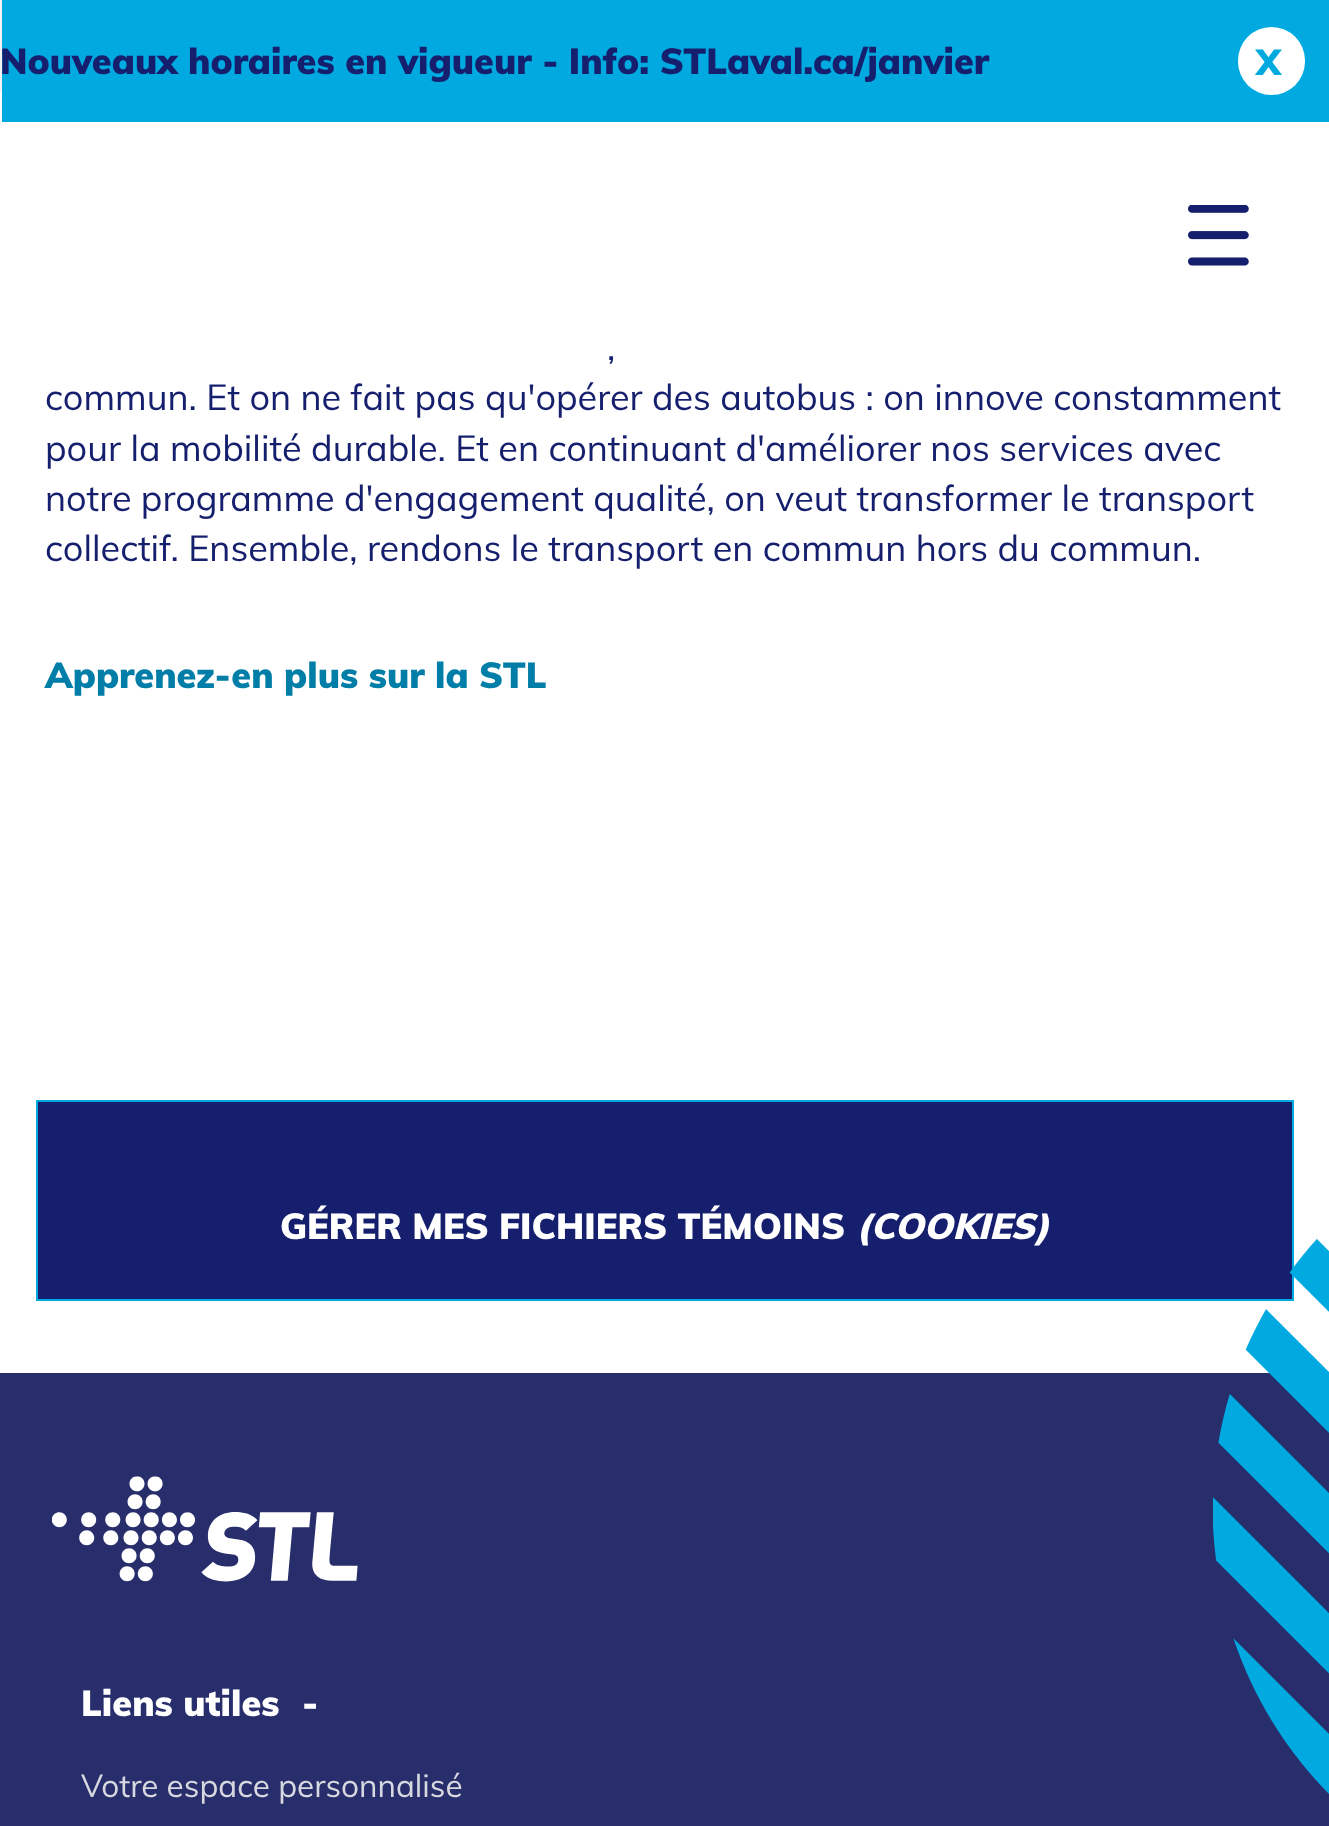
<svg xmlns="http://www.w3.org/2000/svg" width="1329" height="1826">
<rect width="100%" height="100%" fill="#fff"/>
<rect width="2" height="92" fill="#f3f3f3"/>
<rect x="2" width="1327" height="122" fill="#00a9e0"/>
<text x="0" y="74" style="font-family:Muli;font-size:36px;font-weight:900;fill:#151f6d">Nouveaux horaires en vigueur - Info: STLaval.ca/janvier</text>
<rect x="1238" y="27" width="67" height="68" rx="33.5" fill="#fff"/>
<text x="1256" y="75" style="font-family:Muli;font-size:36px;font-weight:900;fill:#00a9e0">X</text>
<image x="1188" y="205" width="61" height="61" href="media/1.png"/>
<text x="607" y="360" style="font-family:Muli;font-size:36px;fill:#151f6d">,</text>
<text x="45" y="410" style="font-family:Muli;font-size:36px;fill:#151f6d">commun. Et on ne fait pas qu'opérer des autobus : on innove constamment</text>
<text x="45" y="461" style="font-family:Muli;font-size:36px;fill:#151f6d">pour la mobilité durable. Et en continuant d'améliorer nos services avec</text>
<text x="45" y="511" style="font-family:Muli;font-size:36px;fill:#151f6d">notre programme d'engagement qualité, on veut transformer le transport</text>
<text x="45" y="561" style="font-family:Muli;font-size:36px;fill:#151f6d">collectif. Ensemble, rendons le transport en commun hors du commun.</text>
<text x="45" y="688" style="font-family:Muli;font-size:36px;font-weight:900;fill:#007ea8">Apprenez-en plus sur la STL</text>
<rect x="37" y="1101" width="1256" height="199" fill="#151f6d" stroke="#00a9e0" stroke-width="2"/>
<text x="280" y="1239" style="font-family:Muli;font-size:36px;font-weight:900;fill:#fff">GÉRER MES FICHIERS TÉMOINS</text>
<text x="856" y="1239" style="font-family:Muli;font-size:36px;font-weight:900;font-style:italic;fill:#fff">(COOKIES)</text>
<rect y="1373" width="1329" height="453" fill="#282e6b"/>
<image x="52" y="1476" width="306" height="106" href="media/2.png"/>
<text x="81" y="1716" style="font-family:Muli;font-size:36px;font-weight:900;fill:#fff">Liens utiles</text>
<text x="302" y="1716" style="font-family:Muli;font-size:36px;font-weight:900;fill:#fff">-</text>
<text x="81" y="1797" style="font-family:Muli;font-size:31.5px;fill:#d7d8e0">Votre espace personnalisé</text>
<image x="1213" y="1239" width="116" height="555" href="media/3.png"/>
</svg>
